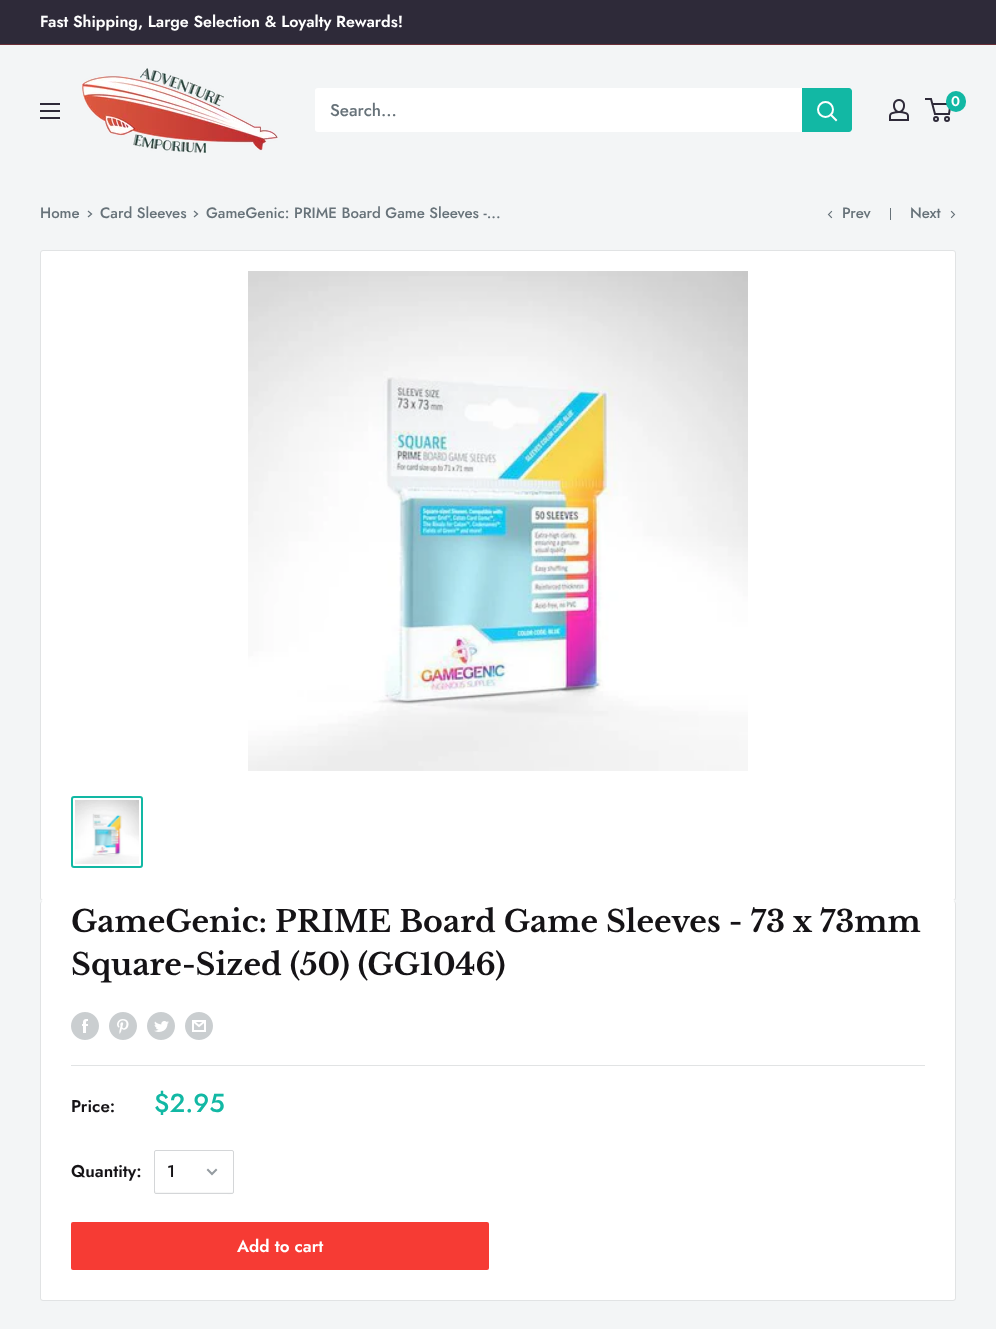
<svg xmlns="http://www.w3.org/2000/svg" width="996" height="1329">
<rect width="100%" height="100%" fill="#f3f5f6"/>
<rect width="996" height="44" fill="#2e2a39"/>
<rect y="44" width="996" height="1" fill="#6a2f38"/>
<text x="40" y="27" style="font-family:Jost;font-size:16px;font-weight:600;fill:#fff">Fast Shipping, Large Selection &amp; Loyalty Rewards!</text>
<image x="40" y="103" width="20" height="16" href="media/1.png"/>
<image x="82" y="68" width="196" height="85" href="media/2.png"/>
<rect x="315" y="88" width="537" height="44" rx="3" fill="#fff"/>
<text x="330" y="116" style="font-family:Jost;font-size:17px;font-weight:500;fill:#677279">Search...</text>
<path d="M802 88h47c1.5 0 3 1.5 3 3v38c0 1.5-1.5 3-3 3h-47z" fill="#12b8a4"/>
<path d="M836 120l-5-5" fill="none" stroke="#fff" stroke-width="2" stroke-linecap="square"/>
<circle cx="825.5" cy="109.5" r="7.5" fill="none" stroke="#fff" stroke-width="2"/>
<image x="889" y="99" width="20" height="22" href="media/3.png"/>
<circle cx="936" cy="119" r="2" fill="none" stroke="#2e2a39" stroke-width="2"/>
<circle cx="947" cy="119" r="2" fill="none" stroke="#2e2a39" stroke-width="2"/>
<path d="M932.5 104h18l-1.5 10h-14l-4-15h-6" fill="none" stroke="#2e2a39" stroke-width="2"/>
<rect x="946" y="91" width="20" height="21" rx="10" fill="#12b8a4"/>
<text x="951" y="106" style="font-family:Jost;font-size:14px;font-weight:600;fill:#fff">0</text>
<text x="40" y="218" style="font-family:Jost;font-size:15px;font-weight:500;fill:#677279">Home</text>
<path d="M88.5 211.5l3 2.5l-3 2.5" fill="none" stroke="#677279" stroke-width="1.3" stroke-linecap="square"/>
<text x="100" y="218" style="font-family:Jost;font-size:15px;font-weight:500;fill:#677279">Card Sleeves</text>
<path d="M194.5 211.5l3 2.5l-3 2.5" fill="none" stroke="#677279" stroke-width="1.3" stroke-linecap="square"/>
<text x="206" y="218" style="font-family:Jost;font-size:15px;font-weight:500;fill:#677279">GameGenic: PRIME Board Game Sleeves -...</text>
<path d="M831.5 217.5l-3-3l3-3" fill="none" stroke="#677279" stroke-width="1.1" stroke-linecap="square"/>
<text x="842" y="218" style="font-family:Jost;font-size:15px;font-weight:500;fill:#677279">Prev</text>
<rect x="890" y="208" width="1" height="12" fill="#677279"/>
<text x="910" y="218" style="font-family:Jost;font-size:15px;font-weight:500;fill:#677279">Next</text>
<path d="M951.5 211.5l3 3l-3 3" fill="none" stroke="#677279" stroke-width="1.1" stroke-linecap="square"/>
<rect x="40.5" y="250.5" width="915" height="650" rx="2.5" fill="#fff" stroke="#e1e3e4"/>
<image x="248" y="271" width="500" height="500" href="media/4.png"/>
<rect x="72" y="797" width="70" height="70" rx="2" fill="none" stroke="#12b8a4" stroke-width="2"/>
<image x="75" y="800" width="64" height="64" href="media/5.png"/>
<path d="M43 900c-2 0-3 2-3 4c0-2 1-3 3-3h910c2 0 3 1 3 3c0-2-1-4-3-4z" fill="#fff"/>
<rect x="40" y="901" width="916" height="400" rx="3" fill="#fff"/>
<path d="M43 901h910c2 0 3 1 3 3v394c0 2-1 3-3 3h-910c-2 0-3-1-3-3v-394c0-2 1-3 3-3zm0 0h910c1 0 2 1 2 3v394c0 1-1 2-2 2h-910c-1 0-2-1-2-2v-394c0-2 1-3 2-3z" fill="#e1e3e4" fill-rule="evenodd"/>
<text x="71" y="932" style="font-family:Libre Baskerville;font-size:30px;font-weight:bold;fill:#151316">GameGenic: PRIME Board Game Sleeves - 73 x 73mm</text>
<text x="71" y="975" style="font-family:Libre Baskerville;font-size:30px;font-weight:bold;fill:#151316">Square-Sized (50) (GG1046)</text>
<image x="71" y="1012" width="28" height="28" href="media/6.png"/>
<image x="109" y="1012" width="28" height="28" href="media/7.png"/>
<image x="147" y="1012" width="28" height="28" href="media/8.png"/>
<image x="185" y="1012" width="28" height="28" href="media/9.png"/>
<rect x="71" y="1065" width="854" height="1" fill="#e1e3e4"/>
<text x="71" y="1112" style="font-family:Jost;font-size:17px;font-weight:600;fill:#151316">Price:</text>
<text x="154" y="1112" style="font-family:Jost;font-size:26px;font-weight:500;fill:#12b8a4">$2.95</text>
<text x="71" y="1177" style="font-family:Jost;font-size:17px;font-weight:600;fill:#151316">Quantity:</text>
<path d="M155 1191c0 1 0 2 1 2h63c3 0 14 4 14-2l-1 1h-75z" fill="#f6f7f7"/>
<rect x="154.5" y="1150.5" width="79" height="43" rx="1.5" fill="none" stroke="#d4d6d8"/>
<text x="167" y="1177" style="font-family:Jost;font-size:17px;font-weight:500;fill:#151316">1</text>
<path d="M216 1170l-4 4l-4-4" fill="none" stroke="#959ca1" stroke-width="2" stroke-linecap="square"/>
<rect x="71" y="1222" width="418" height="48" rx="2" fill="#f63b34"/>
<text x="237" y="1252" style="font-family:Jost;font-size:17px;font-weight:600;fill:#fff">Add to cart</text>
</svg>
